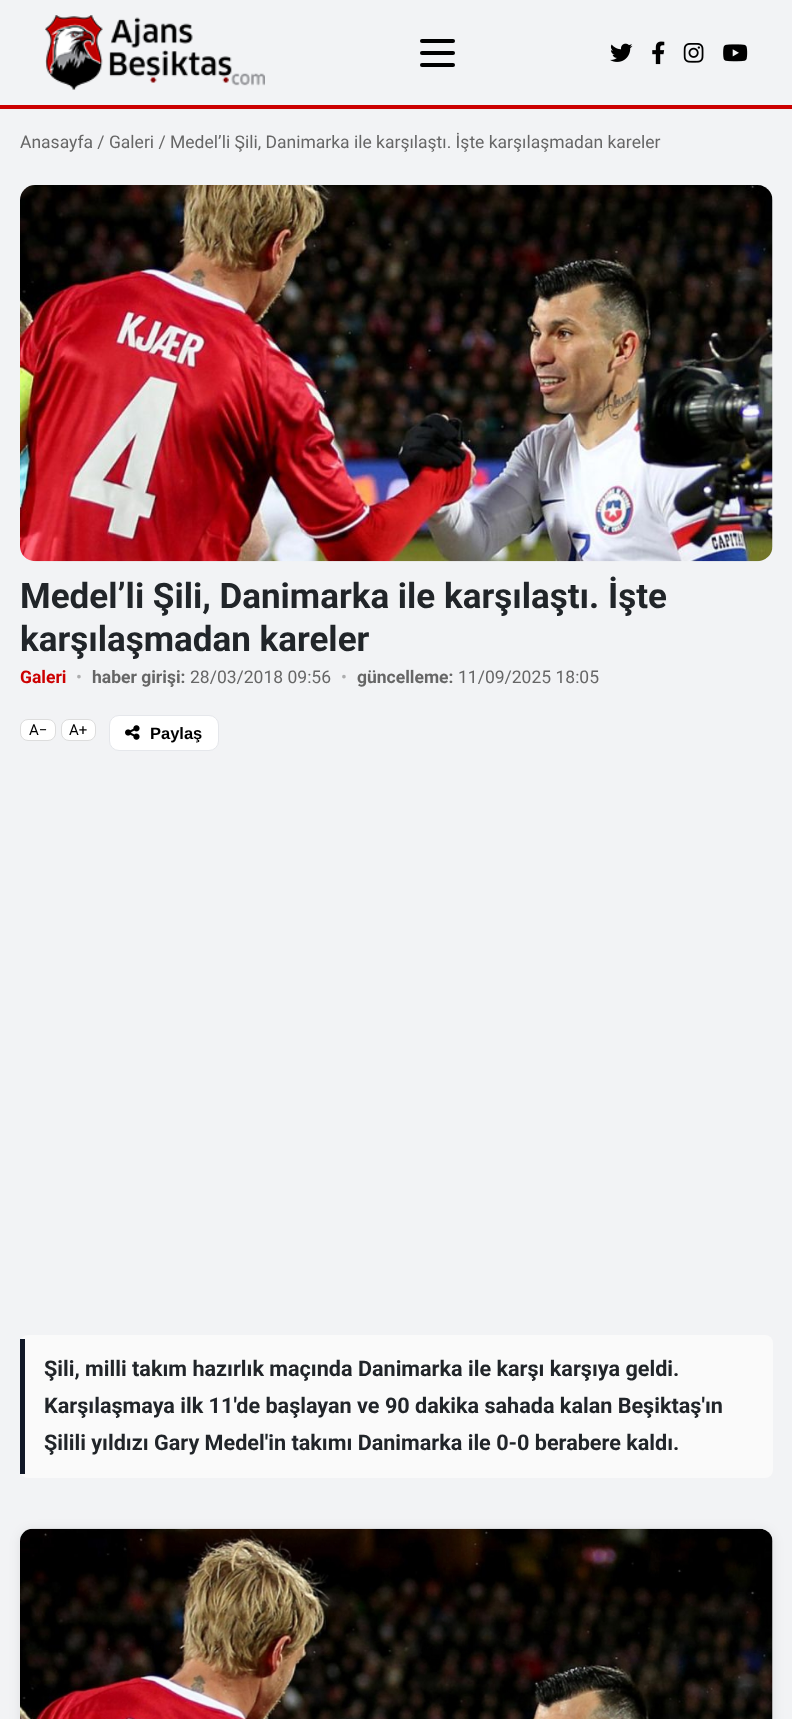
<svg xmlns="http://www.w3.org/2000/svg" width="792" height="1719">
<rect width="100%" height="100%" fill="#f2f3f5"/>
<rect y="105" width="792" height="4" fill="#c00"/>
<image x="45" y="15" width="220" height="75" href="media/1.png"/>
<rect x="420" y="39" width="35" height="4" rx="2" fill="#000"/>
<rect x="420" y="51" width="35" height="4" rx="2" fill="#000"/>
<rect x="420" y="63" width="35" height="4" rx="2" fill="#000"/>
<image x="610" y="43" width="23" height="19" href="media/2.png"/>
<image x="652" y="41" width="13" height="24" href="media/3.png"/>
<image x="683" y="43" width="21" height="20" href="media/4.png"/>
<image x="723" y="44" width="25" height="18" href="media/5.png"/>
<text x="20" y="148" style="font-family:Roboto;font-size:17.5px;fill:#666">Anasayfa / Galeri / Medel’li Şili, Danimarka ile karşılaştı. İşte karşılaşmadan kareler</text>
<image x="20" y="185" width="753" height="377" href="media/6.png"/>
<text x="20" y="608" style="font-family:Roboto;font-size:35px;font-weight:bold;fill:#212529">Medel’li Şili, Danimarka ile karşılaştı. İşte</text>
<text x="20" y="651" style="font-family:Roboto;font-size:35px;font-weight:bold;fill:#212529">karşılaşmadan kareler</text>
<text x="20" y="683" style="font-family:Roboto;font-size:17.5px;font-weight:bold;fill:#c00">Galeri</text>
<text x="76" y="683" style="font-family:Roboto;font-size:17.5px;fill:#acadae">•</text>
<text x="92" y="683" style="font-family:Roboto;font-size:17.5px;font-weight:bold;fill:#666">haber girişi:</text>
<text x="190" y="683" style="font-family:Roboto;font-size:17.5px;fill:#666">28/03/2018 09:56</text>
<text x="341" y="683" style="font-family:Roboto;font-size:17.5px;fill:#acadae">•</text>
<text x="357" y="683" style="font-family:Roboto;font-size:17.5px;font-weight:bold;fill:#666">güncelleme:</text>
<text x="458" y="683" style="font-family:Roboto;font-size:17.5px;fill:#666">11/09/2025 18:05</text>
<rect x="20.5" y="719.5" width="35" height="21" rx="7.5" fill="#fff" stroke="#ddd"/>
<text x="29" y="735" style="font-family:Roboto;font-size:15px;fill:#000">A−</text>
<rect x="61.5" y="719.5" width="34" height="21" rx="7.5" fill="#fff" stroke="#ddd"/>
<text x="69" y="735" style="font-family:Roboto;font-size:15px;fill:#000">A+</text>
<rect x="109.5" y="715.5" width="109" height="35" rx="9.5" fill="#fff" stroke="#e5e7eb"/>
<image x="125" y="725" width="15" height="15" href="media/7.png"/>
<text x="150" y="739" style="font-family:Liberation Sans;font-size:16.5px;font-weight:bold;fill:#000">Paylaş</text>
<rect x="20" y="1335" width="753" height="143" rx="8" fill="#fafafa"/>
<rect x="20" y="1339" width="5" height="135" fill="#111827"/>
<text x="44" y="1376" style="font-family:Roboto;font-size:21.6px;font-weight:bold;fill:#212529">Şili, milli takım hazırlık maçında Danimarka ile karşı karşıya geldi.</text>
<text x="44" y="1413" style="font-family:Roboto;font-size:21.6px;font-weight:bold;fill:#212529">Karşılaşmaya ilk 11'de başlayan ve 90 dakika sahada kalan Beşiktaş'ın</text>
<text x="44" y="1450" style="font-family:Roboto;font-size:21.6px;font-weight:bold;fill:#212529">Şilili yıldızı Gary Medel'in takımı Danimarka ile 0-0 berabere kaldı.</text>
<rect x="20" y="1530" width="753" height="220" rx="13" fill="#00000014" filter="blur(6px)"/>
<image x="20" y="1528" width="753" height="191" href="media/8.png"/>
</svg>
